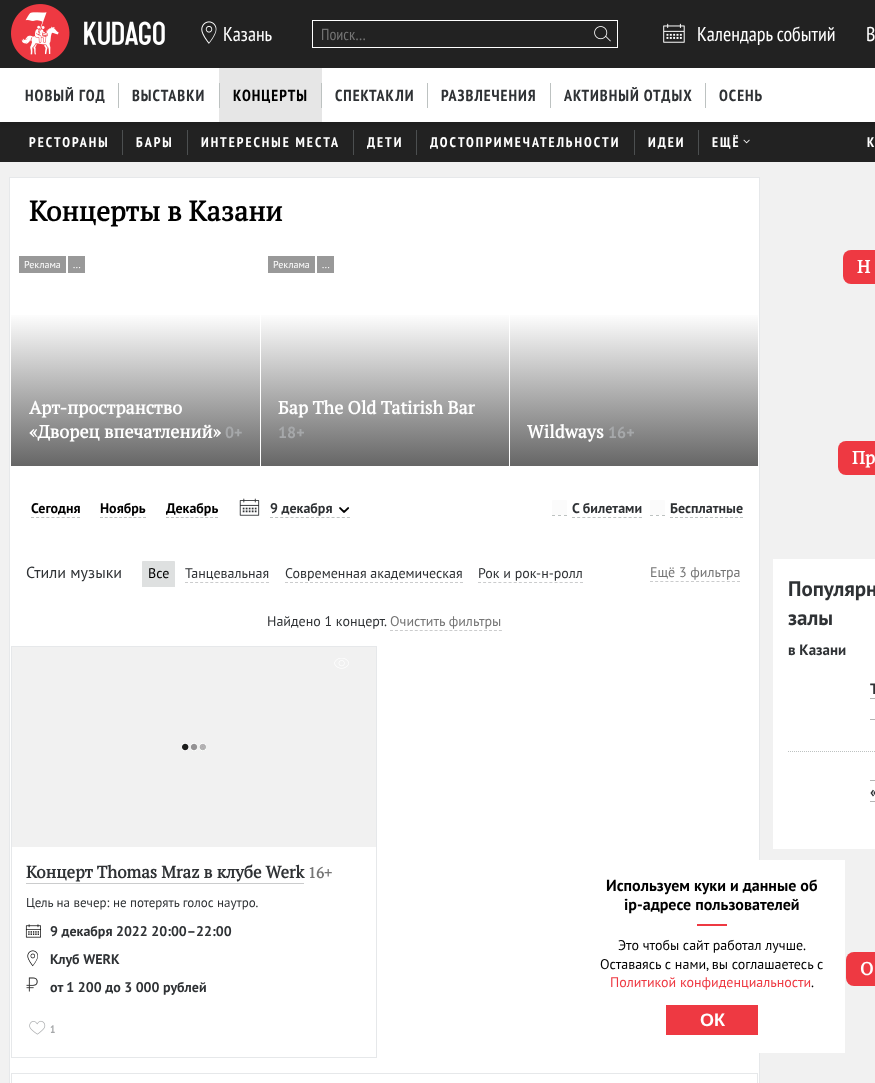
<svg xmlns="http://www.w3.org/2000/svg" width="875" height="1083">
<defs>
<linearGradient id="g1" gradientUnits="userSpaceOnUse" x1="136" y1="247" x2="136" y2="466"><stop offset="0.3" stop-color="#fff"/><stop offset="1" stop-color="#666"/></linearGradient>
<linearGradient id="g2" gradientUnits="userSpaceOnUse" x1="385" y1="247" x2="385" y2="466"><stop offset="0.3" stop-color="#fff"/><stop offset="1" stop-color="#666"/></linearGradient>
<linearGradient id="g3" gradientUnits="userSpaceOnUse" x1="634" y1="247" x2="634" y2="466"><stop offset="0.3" stop-color="#fff"/><stop offset="1" stop-color="#666"/></linearGradient>
</defs>
<rect width="100%" height="100%" fill="#f1f1f1"/>
<rect width="875" height="68" fill="#222"/>
<image x="11" y="4" width="154" height="59" href="media/1.png"/>
<image x="201" y="21" width="16" height="23" href="media/2.png"/>
<text x="223" y="41" style="font-family:PT Sans Narrow;font-size:20px;fill:#fff">Казань</text>
<rect x="312.5" y="20.5" width="305" height="27" fill="none" stroke="#fff"/>
<text x="321" y="40" style="font-family:PT Sans Narrow;font-size:16px;fill:#757575">Поиск…</text>
<image x="594" y="26" width="17" height="16" href="media/3.png"/>
<image x="663" y="23" width="22" height="20" href="media/4.png"/>
<text x="697" y="41" style="font-family:PT Sans Narrow;font-size:20px;fill:#fff">Календарь событий</text>
<text x="866" y="41" style="font-family:PT Sans Narrow;font-size:20px;fill:#fff">В</text>
<rect y="122" width="875" height="40" fill="#222"/>
<rect x="122" y="130" width="1" height="25" fill="#4c4f50"/>
<rect x="187" y="130" width="1" height="25" fill="#4c4f50"/>
<rect x="353" y="130" width="1" height="25" fill="#4c4f50"/>
<rect x="416" y="130" width="1" height="25" fill="#4c4f50"/>
<rect x="634" y="130" width="1" height="25" fill="#4c4f50"/>
<rect x="698" y="130" width="1" height="25" fill="#4c4f50"/>
<rect y="71" width="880" height="54" fill="#0000001a" filter="blur(1.5px)"/>
<rect y="68" width="875" height="54" fill="#fff"/>
<text x="25" y="101" style="font-family:PT Sans Narrow;font-size:16px;font-weight:bold;letter-spacing:1px;fill:#2f3235">НОВЫЙ ГОД</text>
<rect x="118" y="83" width="1" height="25" fill="#bdc2c1"/>
<text x="132" y="101" style="font-family:PT Sans Narrow;font-size:16px;font-weight:bold;letter-spacing:1px;fill:#2f3235">ВЫСТАВКИ</text>
<rect x="219" y="68" width="103" height="54" fill="#e6e6e6"/>
<rect x="219" y="83" width="1" height="25" fill="#bdc2c1"/>
<text x="233" y="101" style="font-family:PT Sans Narrow;font-size:16px;font-weight:bold;letter-spacing:1px;fill:#000">КОНЦЕРТЫ</text>
<rect x="321" y="83" width="1" height="25" fill="#bdc2c1"/>
<text x="335" y="101" style="font-family:PT Sans Narrow;font-size:16px;font-weight:bold;letter-spacing:1px;fill:#2f3235">СПЕКТАКЛИ</text>
<rect x="427" y="83" width="1" height="25" fill="#bdc2c1"/>
<text x="441" y="101" style="font-family:PT Sans Narrow;font-size:16px;font-weight:bold;letter-spacing:1px;fill:#2f3235">РАЗВЛЕЧЕНИЯ</text>
<rect x="550" y="83" width="1" height="25" fill="#bdc2c1"/>
<text x="564" y="101" style="font-family:PT Sans Narrow;font-size:16px;font-weight:bold;letter-spacing:1px;fill:#2f3235">АКТИВНЫЙ ОТДЫХ</text>
<rect x="705" y="83" width="1" height="25" fill="#bdc2c1"/>
<text x="719" y="101" style="font-family:PT Sans Narrow;font-size:16px;font-weight:bold;letter-spacing:1px;fill:#2f3235">ОСЕНЬ</text>
<text x="29" y="147" style="font-family:PT Sans Narrow;font-size:14px;font-weight:bold;letter-spacing:2px;fill:#fff">РЕСТОРАНЫ</text>
<text x="136" y="147" style="font-family:PT Sans Narrow;font-size:14px;font-weight:bold;letter-spacing:2px;fill:#fff">БАРЫ</text>
<text x="201" y="147" style="font-family:PT Sans Narrow;font-size:14px;font-weight:bold;letter-spacing:2px;fill:#fff">ИНТЕРЕСНЫЕ МЕСТА</text>
<text x="367" y="147" style="font-family:PT Sans Narrow;font-size:14px;font-weight:bold;letter-spacing:2px;fill:#fff">ДЕТИ</text>
<text x="430" y="147" style="font-family:PT Sans Narrow;font-size:14px;font-weight:bold;letter-spacing:2px;fill:#fff">ДОСТОПРИМЕЧАТЕЛЬНОСТИ</text>
<text x="648" y="147" style="font-family:PT Sans Narrow;font-size:14px;font-weight:bold;letter-spacing:2px;fill:#fff">ИДЕИ</text>
<text x="712" y="147" style="font-family:PT Sans Narrow;font-size:14px;font-weight:bold;letter-spacing:2px;fill:#fff">ЕЩЁ</text>
<image x="743" y="139" width="7" height="5" href="media/5.png"/>
<text x="867" y="147" style="font-family:PT Sans Narrow;font-size:14px;font-weight:bold;letter-spacing:2px;fill:#fff">К</text>
<rect x="9.5" y="177.5" width="750" height="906" fill="#fff" stroke="#e6e8ea"/>
<text x="29" y="221" style="font-family:PT Serif;font-size:28px;font-weight:bold;fill:#000">Концерты в Казани</text>
<rect x="19" y="256" width="47" height="17" fill="#999"/>
<text x="24" y="268" style="font-family:PT Sans;font-size:10px;fill:#fff">Реклама</text>
<rect x="68" y="256" width="17" height="17" fill="#999"/>
<text x="73" y="268" style="font-family:PT Sans;font-size:10px;fill:#fff">...</text>
<rect x="11" y="315" width="249" height="151" fill="url(#g1)"/>
<text x="29" y="414" style="font-family:PT Serif;font-size:18px;font-weight:bold;fill:#fff">Арт-пространство</text>
<text x="29" y="438" style="font-family:PT Serif;font-size:18px;font-weight:bold;fill:#fff">«Дворец впечатлений»</text>
<text x="225" y="438" style="font-family:PT Sans;font-size:16px;font-weight:bold;fill:#a6a8aa">0+</text>
<rect x="268" y="256" width="47" height="17" fill="#999"/>
<text x="273" y="268" style="font-family:PT Sans;font-size:10px;fill:#fff">Реклама</text>
<rect x="317" y="256" width="17" height="17" fill="#999"/>
<text x="322" y="268" style="font-family:PT Sans;font-size:10px;fill:#fff">...</text>
<rect x="261" y="315" width="248" height="151" fill="url(#g2)"/>
<text x="278" y="414" style="font-family:PT Serif;font-size:18px;font-weight:bold;fill:#fff">Бар The Old Tatirish Bar</text>
<text x="278" y="438" style="font-family:PT Sans;font-size:16px;font-weight:bold;fill:#a6a8aa">18+</text>
<rect x="510" y="315" width="248" height="151" fill="url(#g3)"/>
<text x="527" y="438" style="font-family:PT Serif;font-size:18px;font-weight:bold;fill:#fff">Wildways</text>
<text x="608" y="438" style="font-family:PT Sans;font-size:16px;font-weight:bold;fill:#a6a8aa">16+</text>
<text x="31" y="513" style="font-family:PT Sans;font-size:14px;font-weight:bold;fill:#000">Сегодня</text>
<path d="M31 517.5h49" fill="none" stroke="#bec2c1" stroke-dasharray="3 2.11"/>
<text x="100" y="513" style="font-family:PT Sans;font-size:14px;font-weight:bold;fill:#000">Ноябрь</text>
<path d="M100 517.5h46" fill="none" stroke="#bec2c1" stroke-dasharray="3 1.78"/>
<text x="166" y="513" style="font-family:PT Sans;font-size:14px;font-weight:bold;fill:#000">Декабрь</text>
<path d="M166 517.5h52" fill="none" stroke="#bec2c1" stroke-dasharray="3 1.9"/>
<image x="239" y="498" width="21" height="18" href="media/6.png"/>
<path d="M270 517.5h80" fill="none" stroke="#bdc2c1" stroke-dasharray="3 2.13"/>
<text x="270" y="513" style="font-family:PT Sans;font-size:14px;font-weight:bold;fill:#2f3235">9 декабря</text>
<image x="339" y="507" width="11" height="6" href="media/7.png"/>
<path d="M552 515.5h3m3 0h3m3 0h3" fill="none" stroke="#bdc2c1"/>
<path d="M572 517.5h70" fill="none" stroke="#bdc2c1" stroke-dasharray="3 2.15"/>
<rect x="552" y="500" width="15" height="15" rx="1" fill="#fbfbfb"/>
<text x="572" y="513" style="font-family:PT Sans;font-size:14px;font-weight:bold;fill:#2f3235">С билетами</text>
<path d="M650 515.5h3m3 0h3m3 0h3" fill="none" stroke="#bdc2c1"/>
<path d="M670 517.5h73" fill="none" stroke="#bdc2c1" stroke-dasharray="3 2"/>
<rect x="650" y="500" width="15" height="15" rx="1" fill="#fbfbfb"/>
<text x="670" y="513" style="font-family:PT Sans;font-size:14px;font-weight:bold;fill:#2f3235">Бесплатные</text>
<text x="26" y="578" style="font-family:PT Sans;font-size:16px;fill:#2f3235">Стили музыки</text>
<path d="M143 561h31c.5 0 1 .5 1 1v25h-33v-25c0-.5 .5-1 1-1z" fill="#dee0e0"/>
<text x="148" y="578" style="font-family:PT Sans;font-size:14px;fill:#000">Все</text>
<text x="185" y="578" style="font-family:PT Sans;font-size:14px;fill:#2f3235">Танцевальная</text>
<path d="M185 582.5h84" fill="none" stroke="#cbcccd" stroke-dasharray="3 2.06"/>
<text x="285" y="578" style="font-family:PT Sans;font-size:14px;fill:#2f3235">Современная академическая</text>
<path d="M285 582.5h178" fill="none" stroke="#cbcccd" stroke-dasharray="3 2"/>
<text x="478" y="578" style="font-family:PT Sans;font-size:14px;fill:#2f3235">Рок и рок-н-ролл</text>
<path d="M478 582.5h105" fill="none" stroke="#cbcccd" stroke-dasharray="3 2.1"/>
<text x="650" y="577" style="font-family:PT Sans;font-size:14px;fill:#757575">Ещё 3 фильтра</text>
<path d="M650 581.5h90" fill="none" stroke="#cbcccd" stroke-dasharray="3 2.12"/>
<text x="267" y="626" style="font-family:PT Sans;font-size:14px;fill:#2f3235">Найдено 1 концерт.</text>
<path d="M390 630.5h112" fill="none" stroke="#cbcccd" stroke-dasharray="3 1.95"/>
<text x="390" y="626" style="font-family:PT Sans;font-size:14px;fill:#757575">Очистить фильтры</text>
<rect x="11.5" y="646.5" width="365" height="411" fill="none" stroke="#e6e8ea"/>
<rect x="12" y="647" width="364" height="200" fill="#f1f1f1"/>
<image x="182" y="743" width="24" height="8" href="media/8.png"/>
<image x="334" y="658" width="15" height="11" href="media/9.png"/>
<text x="26" y="878" style="font-family:PT Serif;font-size:17px;font-weight:bold;fill:#2f3235">Концерт Thomas Mraz в клубе Werk</text>
<rect x="26" y="883" width="278" height="1" fill="#cbcccd"/>
<text x="308" y="878" style="font-family:PT Serif;font-size:15px;font-weight:bold;fill:#757575">16+</text>
<text x="26" y="907" style="font-family:PT Sans;font-size:13px;fill:#2f3235">Цель на вечер: не потерять голос наутро.</text>
<image x="25" y="924" width="16" height="14" href="media/10.png"/>
<text x="50" y="936" style="font-family:PT Sans;font-size:14px;font-weight:bold;fill:#2f3235">9 декабря 2022 20:00–22:00</text>
<image x="27" y="950" width="11" height="17" href="media/11.png"/>
<text x="50" y="964" style="font-family:PT Sans;font-size:14px;font-weight:bold;fill:#2f3235">Клуб WERK</text>
<image x="26" y="977" width="12" height="15" href="media/12.png"/>
<text x="50" y="992" style="font-family:PT Sans;font-size:14px;font-weight:bold;fill:#2f3235">от 1 200 до 3 000 рублей</text>
<image x="29" y="1020" width="17" height="15" href="media/13.png"/>
<text x="50" y="1033" style="font-family:PT Sans Narrow;font-size:11px;font-weight:bold;fill:#a6a8aa">1</text>
<rect x="11.5" y="1073.5" width="746" height="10" fill="none" stroke="#e6e8ea"/>
<rect x="843" y="250" width="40" height="34" rx="8" fill="#ee3942"/>
<text x="857" y="273" style="font-family:PT Serif;font-size:18px;font-weight:bold;fill:#fff">Н</text>
<rect x="838" y="441" width="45" height="34" rx="8" fill="#ee3942"/>
<text x="852" y="464" style="font-family:PT Serif;font-size:18px;font-weight:bold;fill:#fff">Пр</text>
<rect x="773" y="559" width="102" height="290" fill="#fff"/>
<text x="788" y="596" style="font-family:PT Sans;font-size:21px;font-weight:bold;fill:#2f3235">Популярн</text>
<text x="788" y="625" style="font-family:PT Sans;font-size:21px;font-weight:bold;fill:#2f3235">залы</text>
<text x="788" y="655" style="font-family:PT Sans;font-size:15px;font-weight:bold;fill:#2f3235">в Казани</text>
<path d="M788 751.5h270" fill="none" stroke="#bdc2c1" stroke-dasharray="1 1"/>
<text x="870" y="694" style="font-family:PT Sans;font-size:15px;font-weight:bold;fill:#2f3235">Т</text>
<rect x="870" y="698" width="5" height="1" fill="#b3b3b3"/>
<rect x="870" y="719" width="5" height="1" fill="#b3b3b3"/>
<text x="870" y="797" style="font-family:PT Sans;font-size:15px;font-weight:bold;fill:#2f3235">«</text>
<rect x="870" y="780" width="5" height="1" fill="#b3b3b3"/>
<rect x="870" y="801" width="5" height="1" fill="#b3b3b3"/>
<rect x="846" y="952" width="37" height="34" rx="8" fill="#ee3942"/>
<text x="860" y="975" style="font-family:PT Serif;font-size:18px;font-weight:bold;fill:#fff">О</text>
<rect x="759" y="860" width="86" height="193" fill="#fff"/>
<text x="606" y="891" style="font-family:PT Sans;font-size:16px;font-weight:bold;fill:#000">Используем куки и данные об</text>
<text x="624" y="910" style="font-family:PT Sans;font-size:16px;font-weight:bold;fill:#000">ip-адресе пользователей</text>
<rect x="697" y="924" width="30" height="2" fill="#ee3942"/>
<text x="618" y="950" style="font-family:PT Sans;font-size:14px;fill:#000">Это чтобы сайт работал лучше.</text>
<text x="600" y="969" style="font-family:PT Sans;font-size:14px;fill:#000">Оставаясь с нами, вы соглашаетесь с</text>
<text x="610" y="987" style="font-family:PT Sans;font-size:14px;fill:#ee3942">Политикой конфиденциальности</text>
<text x="811" y="987" style="font-family:PT Sans;font-size:14px;fill:#000">.</text>
<rect x="666" y="1005" width="92" height="30" fill="#ee3942"/>
<text x="700" y="1026" style="font-family:Liberation Sans;font-size:18px;font-weight:bold;fill:#fff">ОК</text>
</svg>
